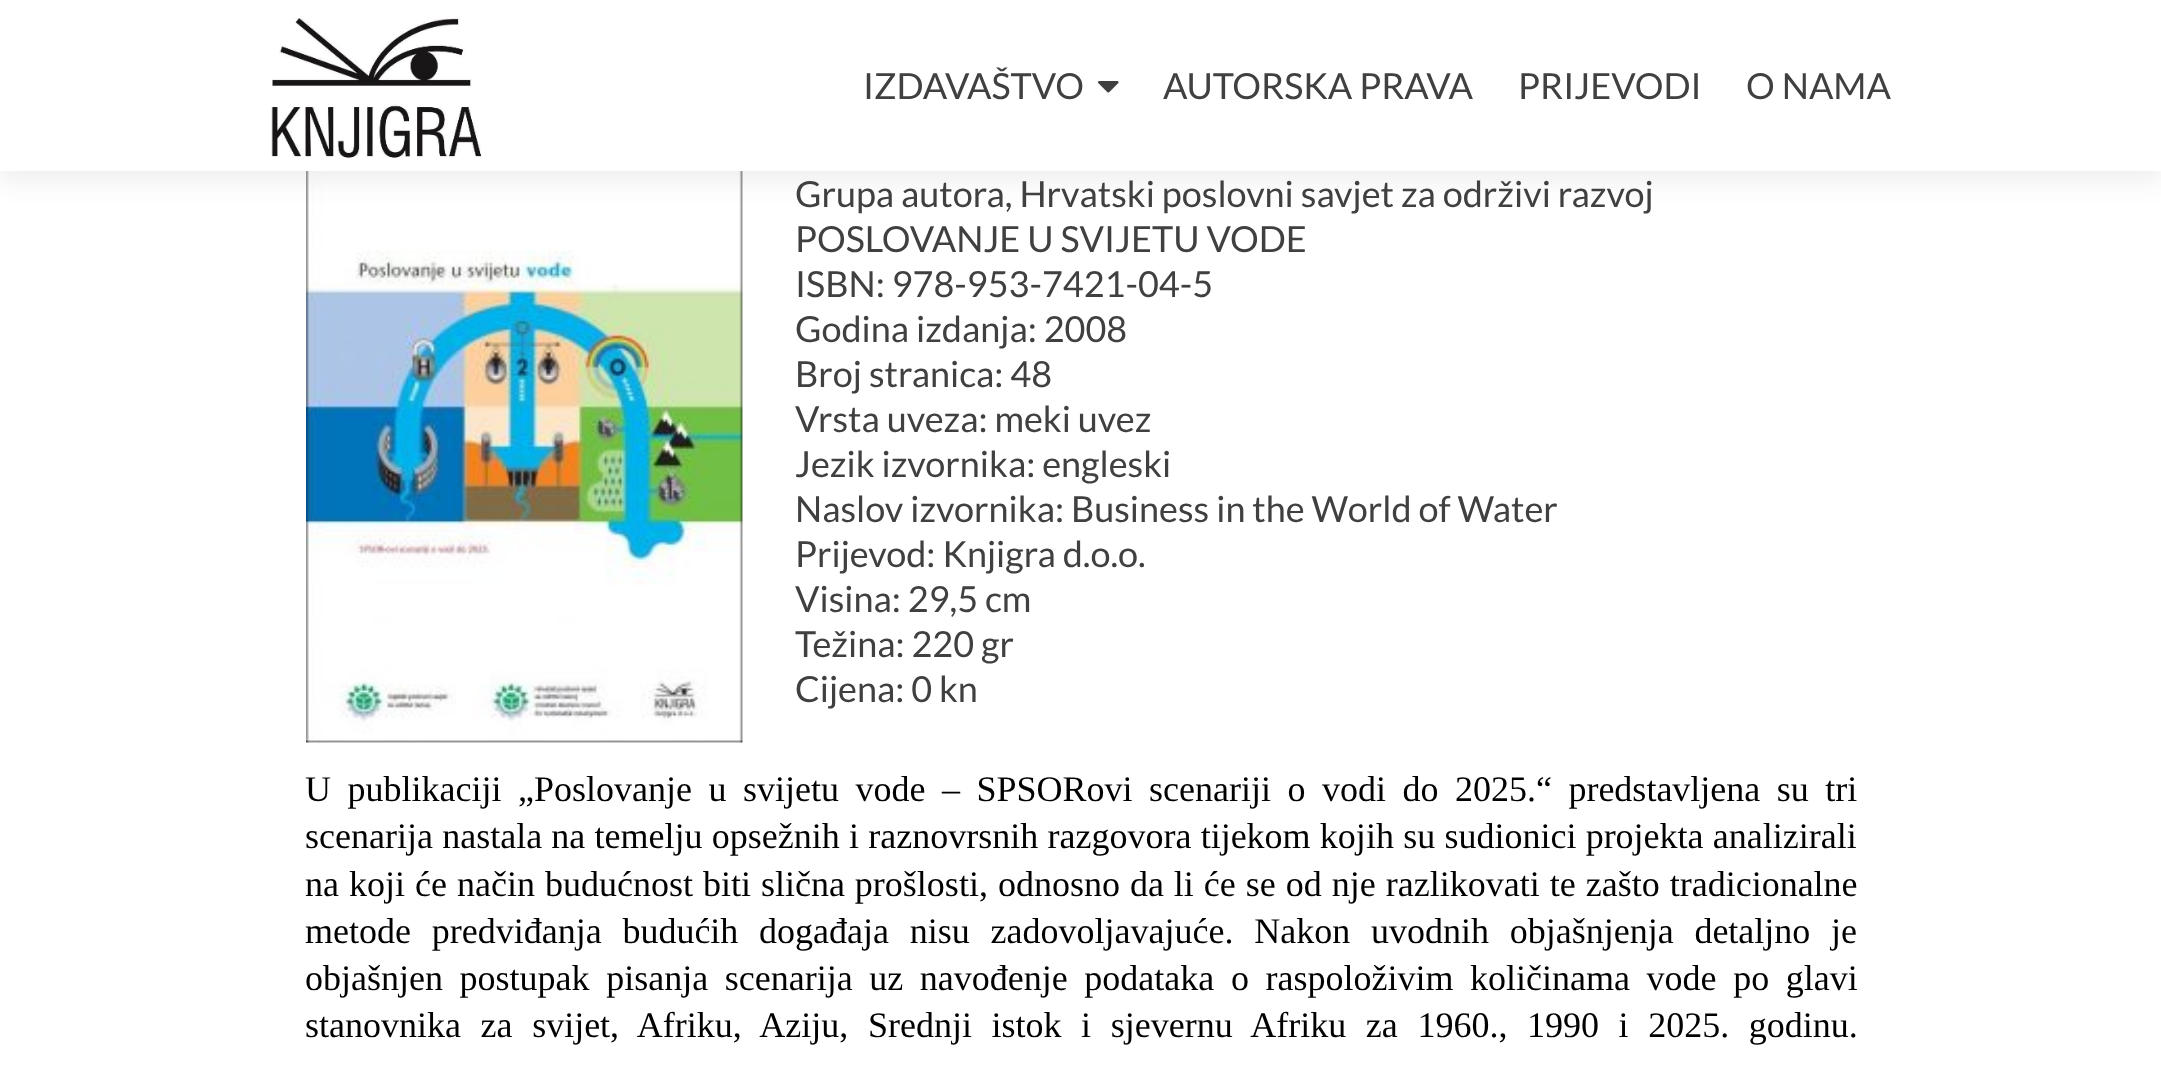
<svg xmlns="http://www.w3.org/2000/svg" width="2161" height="1069">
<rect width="100%" height="100%" fill="#fff"/>
<image x="306" y="171" width="437" height="572" href="media/3.png"/>
<rect y="11" width="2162" height="171" fill="#32323214" filter="blur(12.5px)"/>
<rect width="2161" height="171" fill="#fff"/>
<image x="271" y="18" width="211" height="140" href="media/1.png"/>
<text x="863" y="99" style="font-family:Lato;font-size:36px;fill:#404040">IZDAVAŠTVO</text>
<image x="1098" y="81" width="21" height="12" href="media/2.png"/>
<text x="1163" y="99" style="font-family:Lato;font-size:36px;fill:#404040">AUTORSKA PRAVA</text>
<text x="1518" y="99" style="font-family:Lato;font-size:36px;fill:#404040">PRIJEVODI</text>
<text x="1746" y="99" style="font-family:Lato;font-size:36px;fill:#404040">O NAMA</text>
<text x="795" y="207" style="font-family:Lato;font-size:36px;fill:#404040">Grupa autora, Hrvatski poslovni savjet za održivi razvoj</text>
<text x="795" y="252" style="font-family:Lato;font-size:36px;fill:#404040">POSLOVANJE U SVIJETU VODE</text>
<text x="795" y="297" style="font-family:Lato;font-size:36px;fill:#404040">ISBN: 978-953-7421-04-5</text>
<text x="795" y="342" style="font-family:Lato;font-size:36px;fill:#404040">Godina izdanja: 2008</text>
<text x="795" y="387" style="font-family:Lato;font-size:36px;fill:#404040">Broj stranica: 48</text>
<text x="795" y="432" style="font-family:Lato;font-size:36px;fill:#404040">Vrsta uveza: meki uvez</text>
<text x="795" y="477" style="font-family:Lato;font-size:36px;fill:#404040">Jezik izvornika: engleski</text>
<text x="795" y="522" style="font-family:Lato;font-size:36px;fill:#404040">Naslov izvornika: Business in the World of Water</text>
<text x="795" y="567" style="font-family:Lato;font-size:36px;fill:#404040">Prijevod: Knjigra d.o.o.</text>
<text x="795" y="612" style="font-family:Lato;font-size:36px;fill:#404040">Visina: 29,5 cm</text>
<text x="795" y="657" style="font-family:Lato;font-size:36px;fill:#404040">Težina: 220 gr</text>
<text x="795" y="702" style="font-family:Lato;font-size:36px;fill:#404040">Cijena: 0 kn</text>
<text x="305" y="801" word-spacing="7.5" style="font-family:Liberation Serif;font-size:36px;fill:#000">U publikaciji „Poslovanje u svijetu vode – SPSORovi scenariji o vodi do 2025.“ predstavljena su tri</text>
<text x="305" y="848" word-spacing="0.25" style="font-family:Liberation Serif;font-size:36px;fill:#000">scenarija nastala na temelju opsežnih i raznovrsnih razgovora tijekom kojih su sudionici projekta analizirali</text>
<text x="305" y="896" word-spacing="1" style="font-family:Liberation Serif;font-size:36px;fill:#000">na koji će način budućnost biti slična prošlosti, odnosno da li će se od nje razlikovati te zašto tradicionalne</text>
<text x="305" y="943" word-spacing="11.75" style="font-family:Liberation Serif;font-size:36px;fill:#000">metode predviđanja budućih događaja nisu zadovoljavajuće. Nakon uvodnih objašnjenja detaljno je</text>
<text x="305" y="990" word-spacing="7.6" style="font-family:Liberation Serif;font-size:36px;fill:#000">objašnjen postupak pisanja scenarija uz navođenje podataka o raspoloživim količinama vode po glavi</text>
<text x="305" y="1037" word-spacing="10.6" style="font-family:Liberation Serif;font-size:36px;fill:#000">stanovnika za svijet, Afriku, Aziju, Srednji istok i sjevernu Afriku za 1960., 1990 i 2025. godinu.</text>
</svg>
